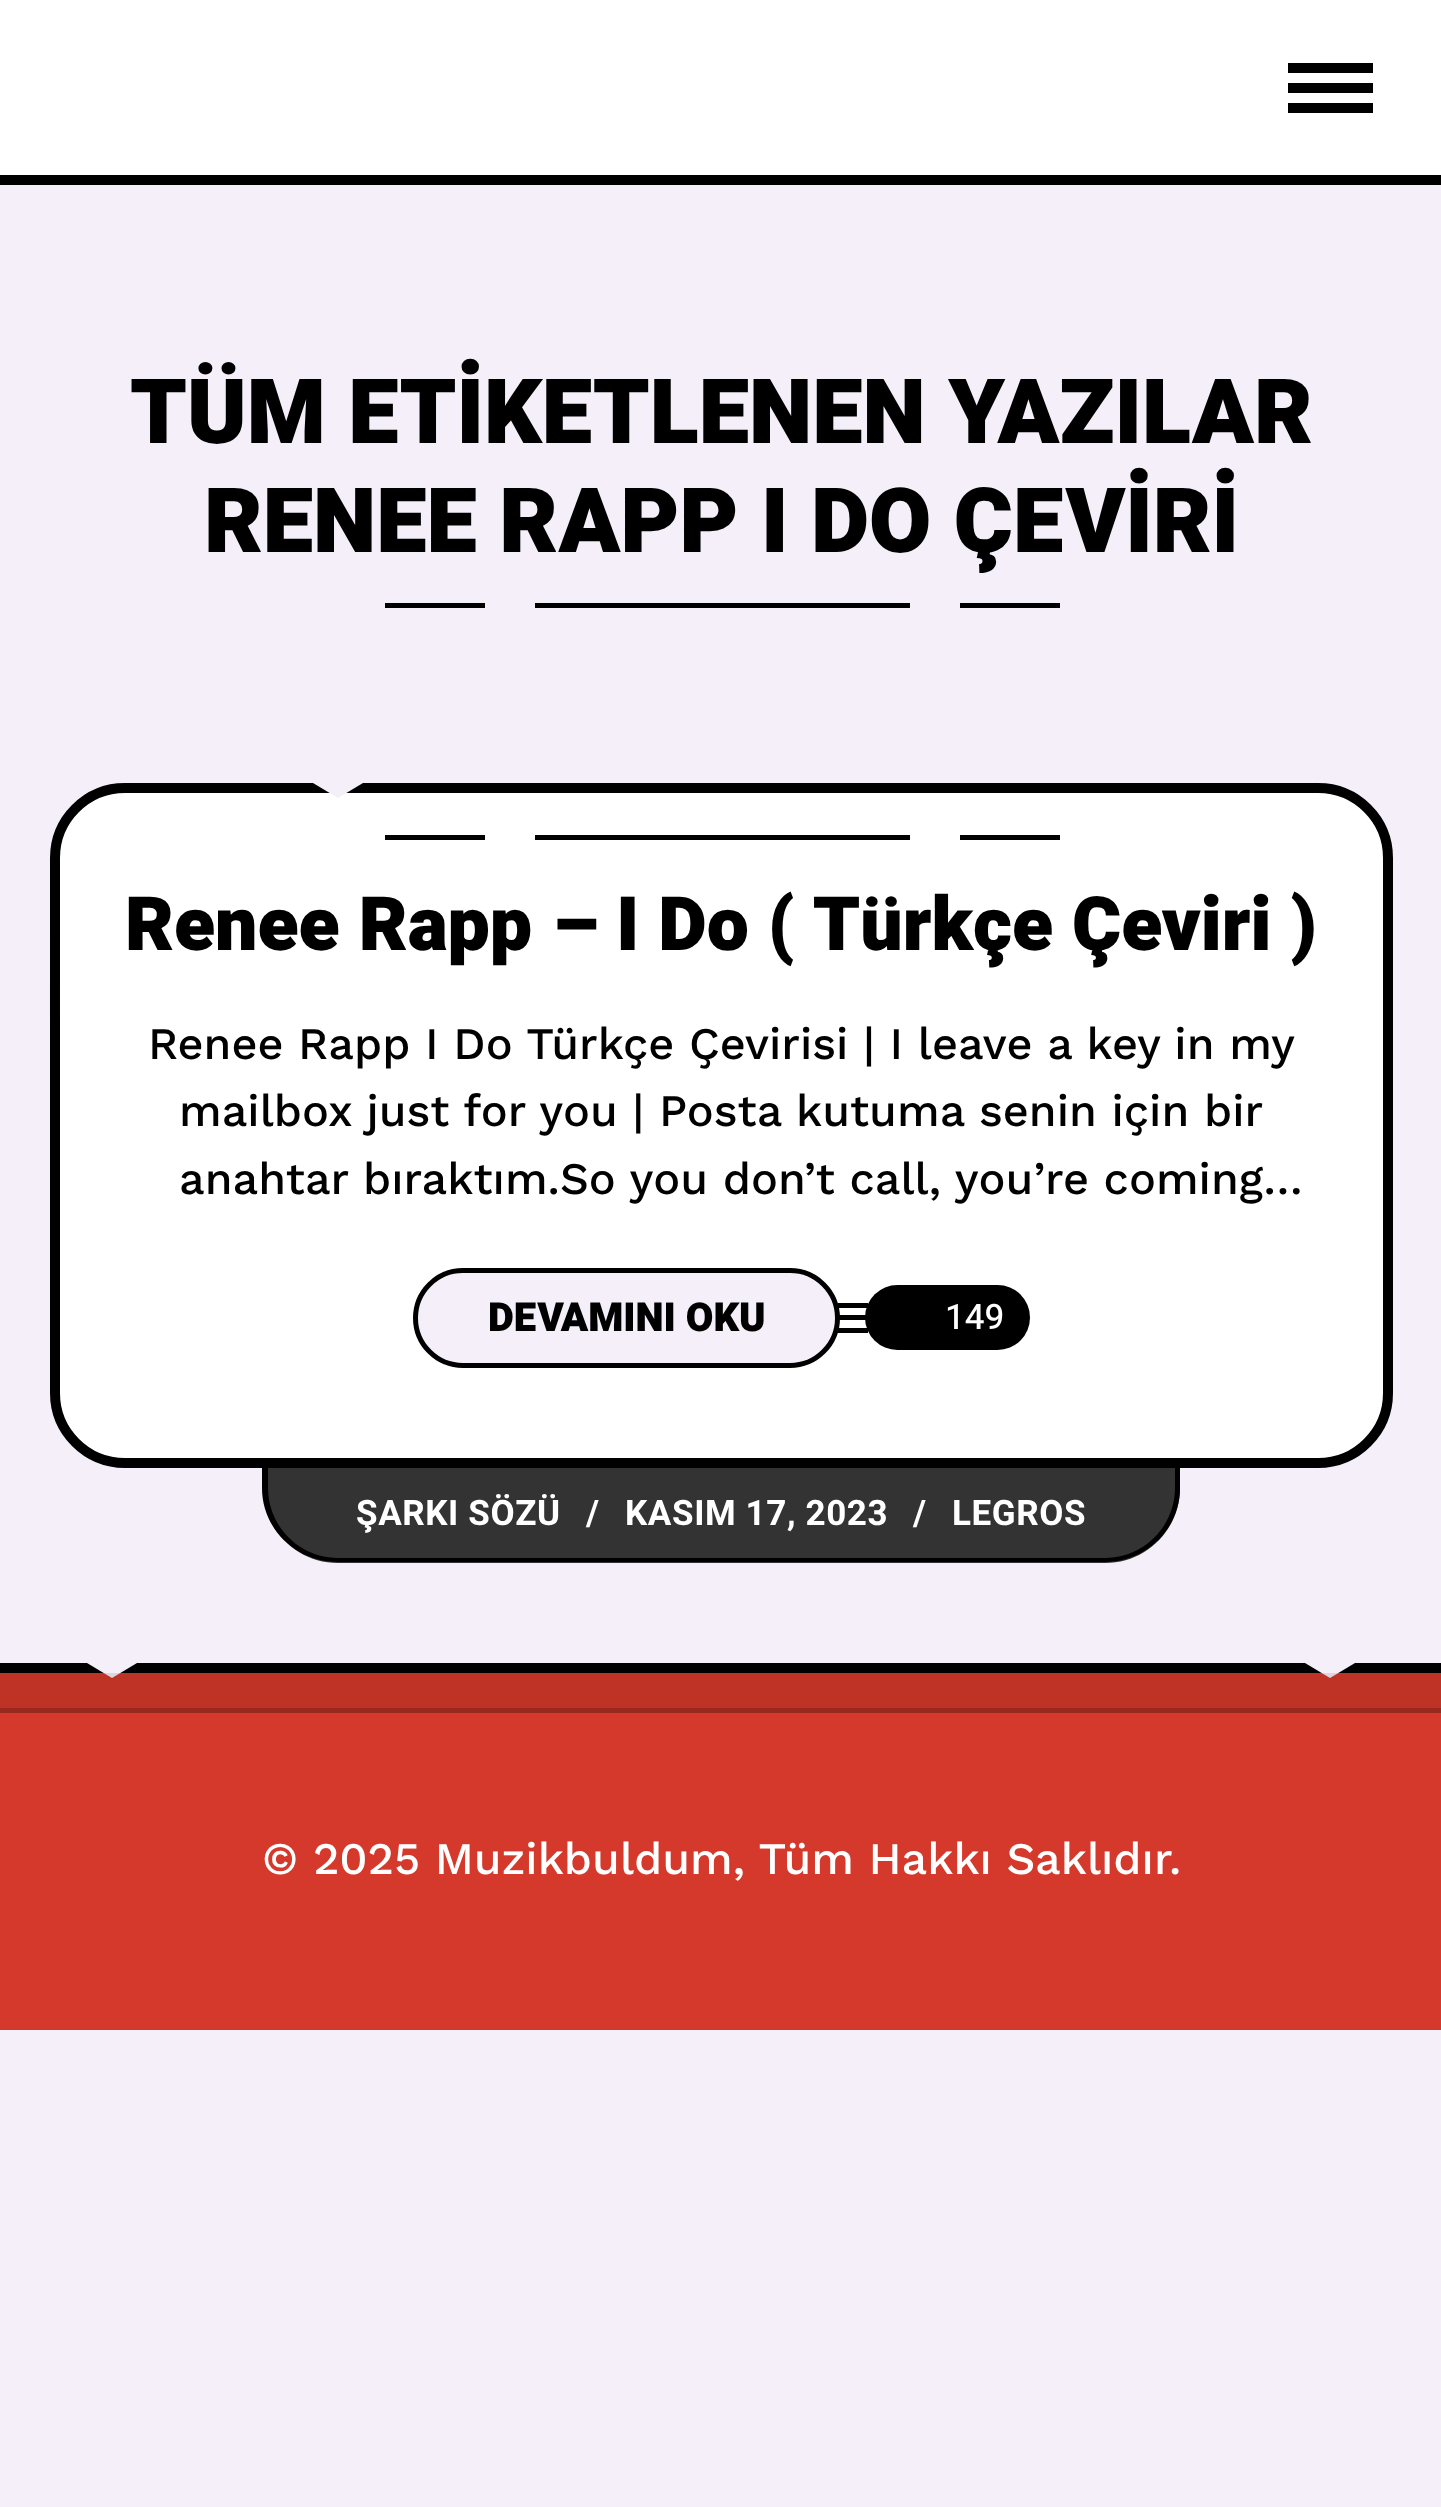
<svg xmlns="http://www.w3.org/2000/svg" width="1441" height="2507">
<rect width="100%" height="100%" fill="#f5eff9"/>
<rect width="1441" height="175" fill="#fff"/>
<rect y="175" width="1441" height="10" fill="#000"/>
<rect x="1288" y="83" width="85" height="10" fill="#000"/>
<rect x="1288" y="63" width="85" height="10" fill="#000"/>
<rect x="1288" y="103" width="85" height="10" fill="#000"/>
<text x="130" y="443" style="font-family:Heebo;font-size:90px;font-weight:900;fill:#000">TÜM ETİKETLENEN YAZILAR</text>
<text x="204" y="552" style="font-family:Heebo;font-size:90px;font-weight:900;fill:#000">RENEE RAPP I DO ÇEVİRİ</text>
<rect x="535" y="603" width="375" height="5" fill="#000"/>
<rect x="385" y="603" width="100" height="5" fill="#000"/>
<rect x="960" y="603" width="100" height="5" fill="#000"/>
<rect x="55" y="788" width="1333" height="675" rx="70" fill="#fff" stroke="#000" stroke-width="10"/>
<path d="M308 780h60l-30 18z" fill="#f5eff9"/>
<rect x="535" y="835" width="375" height="5" fill="#000"/>
<rect x="385" y="835" width="100" height="5" fill="#000"/>
<rect x="960" y="835" width="100" height="5" fill="#000"/>
<text x="125" y="950" word-spacing="0.25" style="font-family:Heebo;font-size:75px;font-weight:900;fill:#000">Renee Rapp – I Do ( Türkçe Çeviri )</text>
<text x="148" y="1059" style="font-family:Work Sans;font-size:45px;font-weight:500;fill:#000">Renee Rapp I Do Türkçe Çevirisi | I leave a key in my</text>
<text x="179" y="1126" style="font-family:Work Sans;font-size:45px;font-weight:500;fill:#000">mailbox just for you | Posta kutuma senin için bir</text>
<text x="179" y="1194" style="font-family:Work Sans;font-size:45px;font-weight:500;fill:#000">anahtar bıraktım.So you don’t call, you’re coming…</text>
<rect x="865" y="1285" width="165" height="65" rx="32.5" fill="#000"/>
<rect x="838" y="1303" width="30" height="5" fill="#000"/>
<rect x="838" y="1328" width="30" height="5" fill="#000"/>
<rect x="838" y="1315" width="30" height="5" fill="#000"/>
<rect x="415.5" y="1270.5" width="422" height="95" rx="47.5" fill="#f5eff9" stroke="#000" stroke-width="5"/>
<text x="488" y="1331" style="font-family:Heebo;font-size:40px;font-weight:900;fill:#000">DEVAMINI OKU</text>
<text x="945" y="1329" style="font-family:Heebo;font-size:35px;font-weight:500;fill:#fff">149</text>
<path d="M263 1468h917v20c0 41.5-33.5 75-75 75h-767c-41.5 0-75-33.5-75-75z" fill="#333"/>
<path d="M262 1468h918v20c0 41-34 74-75 74h-767c-42 0-76-33-76-74zm6 0h907v20c0 38-31 70-70 70h-767c-39 0-70-32-70-70z" fill="#000" fill-rule="evenodd"/>
<text x="356" y="1525" style="font-family:Heebo;font-size:35px;font-weight:bold;letter-spacing:0.6px;fill:#fff">ŞARKI SÖZÜ</text>
<text x="586" y="1525" style="font-family:Heebo;font-size:35px;font-weight:bold;letter-spacing:0.6px;fill:#fff">/</text>
<text x="625" y="1525" style="font-family:Heebo;font-size:35px;font-weight:bold;letter-spacing:0.6px;fill:#fff">KASIM 17, 2023</text>
<text x="913" y="1525" style="font-family:Heebo;font-size:35px;font-weight:bold;letter-spacing:0.6px;fill:#fff">/</text>
<text x="952" y="1525" style="font-family:Heebo;font-size:35px;font-weight:bold;letter-spacing:0.6px;fill:#fff">LEGROS</text>
<rect y="1673" width="1441" height="357" fill="#d4392b"/>
<rect y="1663" width="1441" height="10" fill="#000"/>
<rect y="1708" width="1441" height="5" fill="#aa2e22"/>
<path d="M82 1660h60l-30 18z" fill="#f5eff9"/>
<path d="M1300 1660h60l-30 18z" fill="#f5eff9"/>
<rect y="1673" width="1441" height="40" fill="#0000001a"/>
<text x="262" y="1874" style="font-family:Work Sans;font-size:45px;font-weight:500;fill:#fff">© 2025 Muzikbuldum, Tüm Hakkı Saklıdır.</text>
</svg>
